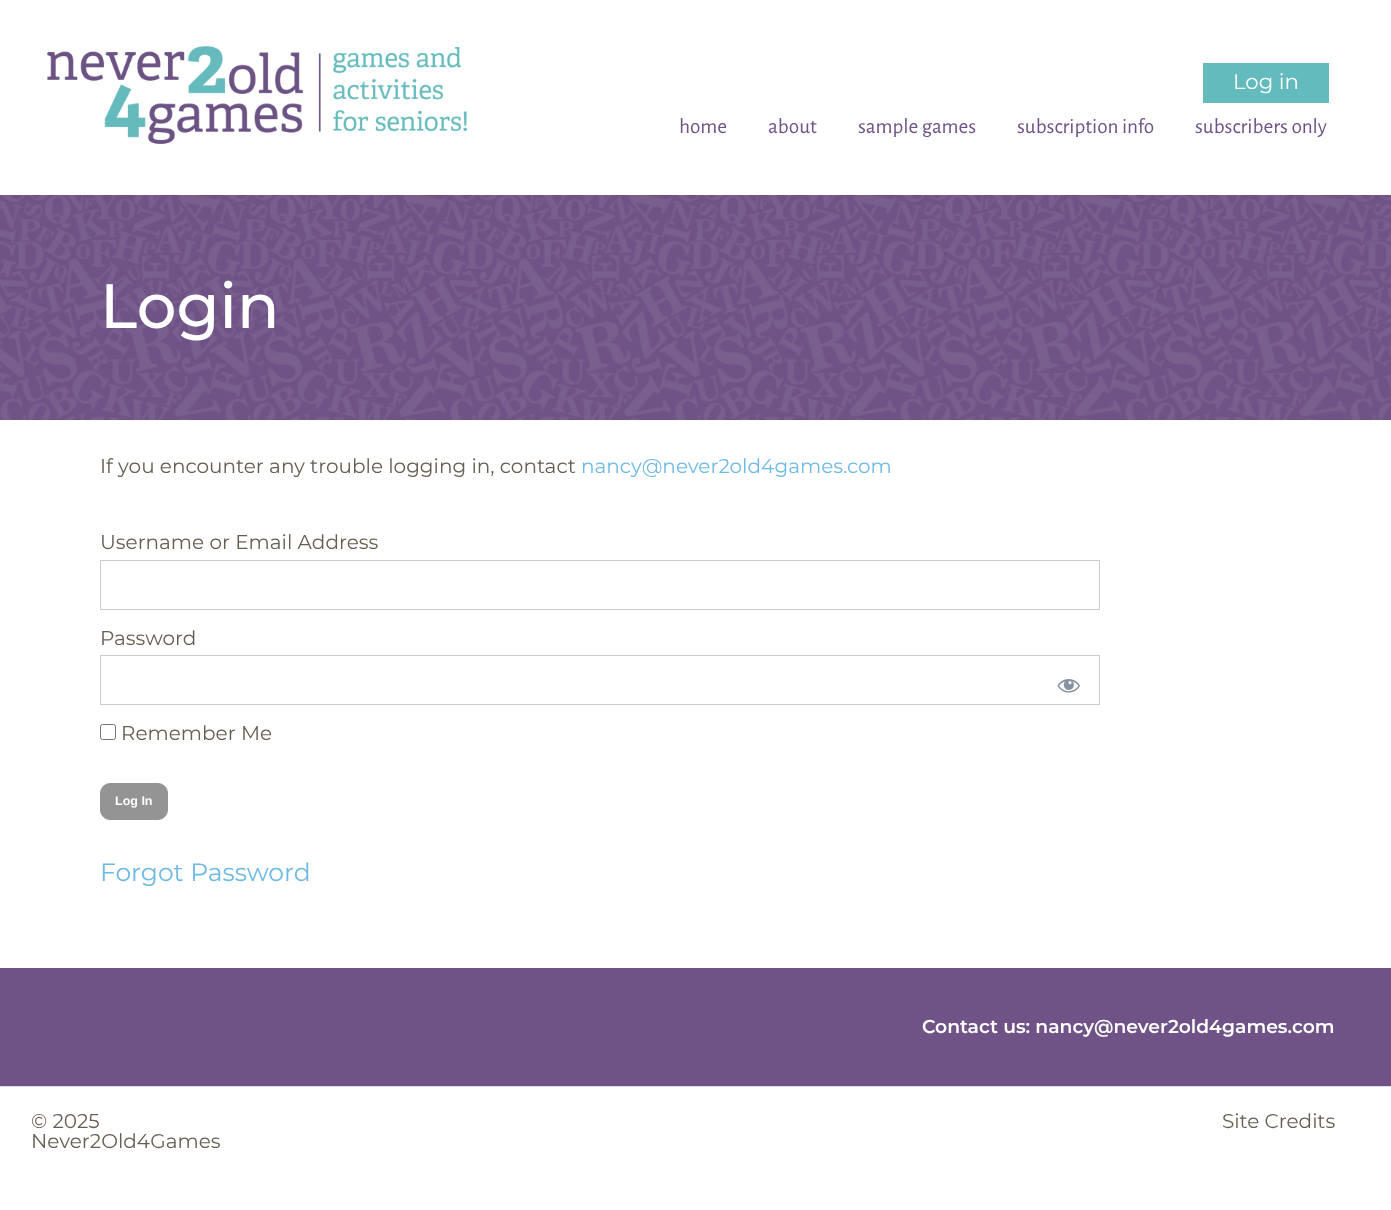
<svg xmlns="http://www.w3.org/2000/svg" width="1391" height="1210">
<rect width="100%" height="100%" fill="#fff"/>
<image x="47" y="46" width="420" height="98" href="media/1.png"/>
<rect x="1203" y="63" width="126" height="40" fill="#63bbbd"/>
<text x="1233" y="89" style="font-family:Montserrat;font-size:21.25px;fill:#fff">Log in</text>
<text x="679" y="133" style="font-family:Alegreya Sans;font-size:21.25px;fill:#6f5386">home</text>
<text x="768" y="133" style="font-family:Alegreya Sans;font-size:21.25px;fill:#6f5386">about</text>
<text x="858" y="133" style="font-family:Alegreya Sans;font-size:21.25px;fill:#6f5386">sample games</text>
<text x="1017" y="133" style="font-family:Alegreya Sans;font-size:21.25px;fill:#6f5386">subscription info</text>
<text x="1195" y="133" style="font-family:Alegreya Sans;font-size:21.25px;fill:#6f5386">subscribers only</text>
<rect y="195" width="1391" height="225" fill="#6f5386"/>
<image x="0" y="195" width="1391" height="225" href="media/2.png"/>
<text x="100" y="328" style="font-family:Montserrat;font-size:62.5px;font-weight:500;fill:#fff">Login</text>
<text x="100" y="473" style="font-family:Montserrat;font-size:20px;fill:#665f51">If you encounter any trouble logging in, contact</text>
<text x="581" y="473" style="font-family:Montserrat;font-size:20px;fill:#6ebae4">nancy@never2old4games.com</text>
<text x="100" y="549" style="font-family:Montserrat;font-size:20px;fill:#665f51">Username or Email Address</text>
<rect x="100.5" y="560.5" width="999" height="49" fill="none" stroke="#ccc"/>
<text x="100" y="645" style="font-family:Montserrat;font-size:20px;fill:#665f51">Password</text>
<rect x="100.5" y="655.5" width="999" height="49" fill="none" stroke="#ccc"/>
<image x="1057" y="679" width="23" height="14" href="media/3.png"/>
<rect x="100.5" y="724.5" width="15" height="15" rx="2" fill="none" stroke="#767676"/>
<text x="121" y="740" style="font-family:Montserrat;font-size:20px;fill:#665f51">Remember Me</text>
<rect x="100.5" y="783.5" width="67" height="36" rx="9.5" fill="#949494" stroke="#949494"/>
<text x="115" y="805" style="font-family:Liberation Sans;font-size:12.5px;font-weight:bold;fill:#fff">Log In</text>
<text x="100" y="881" style="font-family:Montserrat;font-size:25px;fill:#6ebae4">Forgot Password</text>
<rect y="968" width="1391" height="118" fill="#6f5386"/>
<text x="922" y="1033" style="font-family:Montserrat;font-size:18.75px;font-weight:600;fill:#fff">Contact us: nancy@never2old4games.com</text>
<rect y="1086" width="1391" height="1" fill="#ddd"/>
<text x="31" y="1128" style="font-family:Montserrat;font-size:20px;fill:#665f51">© 2025</text>
<text x="31" y="1148" style="font-family:Montserrat;font-size:20px;fill:#665f51">Never2Old4Games</text>
<text x="1222" y="1128" style="font-family:Montserrat;font-size:20px;fill:#665f51">Site Credits</text>
</svg>
